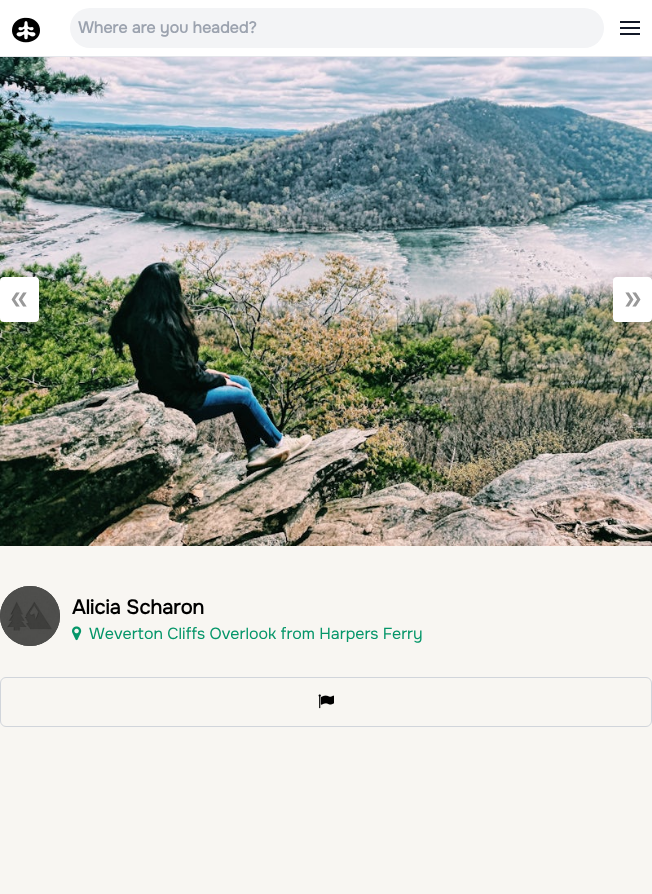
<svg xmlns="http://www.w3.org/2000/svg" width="652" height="894">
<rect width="100%" height="100%" fill="#f8f6f2"/>
<rect width="652" height="56" fill="#fff"/>
<rect y="56" width="652" height="1" fill="#e5e7eb"/>
<image x="12" y="17" width="28" height="26" href="media/1.png"/>
<rect x="70" y="8" width="534" height="40" rx="20" fill="#f3f4f6"/>
<text x="78" y="33" style="font-family:Onest;font-size:16px;font-weight:bold;fill:#9ca3af">Where are you headed?</text>
<image x="620" y="21" width="20" height="14" href="media/2.png"/>
<image x="0" y="57" width="652" height="489" href="media/3.png"/>
<rect y="277" width="39" height="45" rx="4" fill="#00000026" filter="blur(12px)"/>
<rect y="277" width="39" height="45" rx="4" fill="#fff"/>
<text x="10" y="310" style="font-family:Onest;font-size:40px;fill:#999">«</text>
<rect x="613" y="277" width="39" height="45" rx="4" fill="#00000026" filter="blur(12px)"/>
<rect x="613" y="277" width="39" height="45" rx="4" fill="#fff"/>
<text x="623" y="310" style="font-family:Onest;font-size:40px;fill:#999">»</text>
<circle cx="30" cy="616" r="30" fill="#333"/>
<image x="0" y="586" width="60" height="60" href="media/4.png"/>
<text x="72" y="614" style="font-family:Onest;font-size:20px;font-weight:bold;fill:#000">Alicia Scharon</text>
<image x="72" y="626" width="10" height="15" href="media/5.png"/>
<text x="89" y="639" style="font-family:Onest;font-size:16px;fill:#059669">Weverton Cliffs Overlook from Harpers Ferry</text>
<rect x="0.5" y="677.5" width="651" height="49" rx="5.5" fill="none" stroke="#d1d5db"/>
<image x="318" y="694" width="16" height="15" href="media/6.png"/>
</svg>
